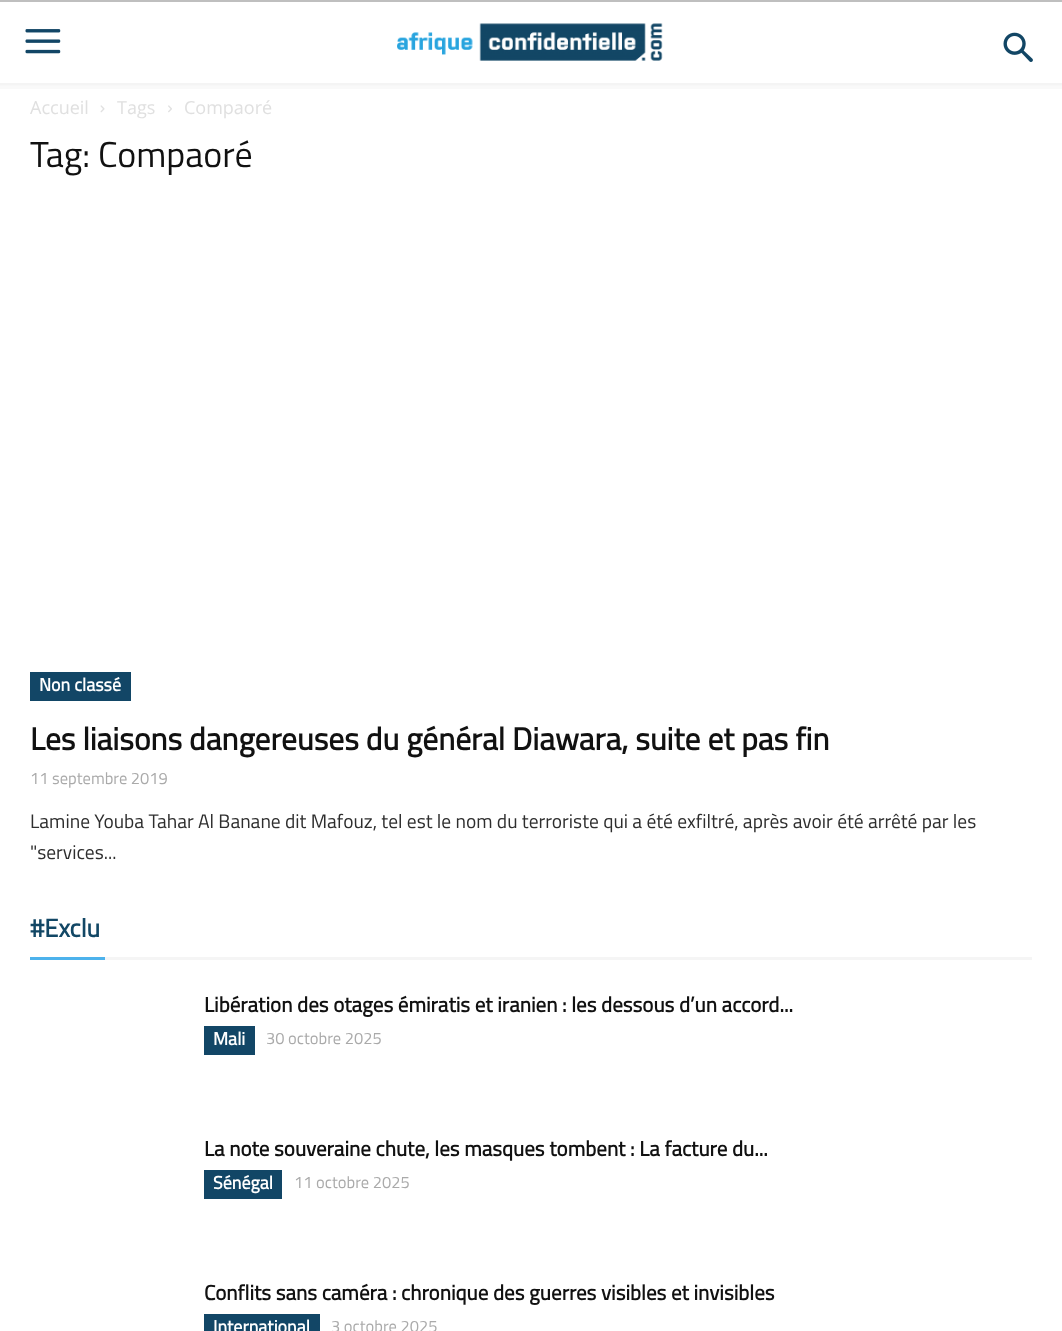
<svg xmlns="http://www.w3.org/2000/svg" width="1062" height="1331">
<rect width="100%" height="100%" fill="#fff"/>
<rect width="1062" height="2" fill="#bfbfbf"/>
<image x="25" y="29" width="36" height="25" href="media/1.png"/>
<image x="397" y="23" width="266" height="38" href="media/2.png"/>
<image x="1003" y="32" width="30" height="30" href="media/3.png"/>
<image x="0" y="83" width="1062" height="6" href="media/4.png"/>
<text x="30" y="114" style="font-family:Open Sans;font-size:18px;fill:#e0e0e0">Accueil</text>
<image x="100" y="105" width="5" height="8" href="media/5.png"/>
<text x="117" y="114" style="font-family:Open Sans;font-size:18px;fill:#e0e0e0">Tags</text>
<image x="168" y="105" width="4" height="8" href="media/6.png"/>
<text x="184" y="114" style="font-family:Open Sans;font-size:18px;fill:#e0e0e0">Compaoré</text>
<text x="30" y="167" style="font-family:Titillium Web;font-size:36px;fill:#111">Tag: Compaoré</text>
<rect x="30" y="672" width="101" height="29" fill="#124666"/>
<text x="39" y="691" style="font-family:Titillium Web;font-size:18px;font-weight:bold;fill:#fff">Non classé</text>
<text x="30" y="750" style="font-family:Titillium Web;font-size:31.5px;font-weight:bold;fill:#111">Les liaisons dangereuses du général Diawara, suite et pas fin</text>
<text x="30" y="784" style="font-family:Titillium Web;font-size:16.5px;fill:#aaa">11 septembre 2019</text>
<text x="30" y="828" style="font-family:Titillium Web;font-size:19.5px;fill:#2e2e2e">Lamine Youba Tahar Al Banane dit Mafouz, tel est le nom du terroriste qui a été exfiltré, après avoir été arrêté par les</text>
<text x="30" y="859" style="font-family:Titillium Web;font-size:19.5px;fill:#2e2e2e">"services...</text>
<text x="30" y="937" style="font-family:Titillium Web;font-size:25.5px;font-weight:bold;fill:#124765">#Exclu</text>
<rect x="30" y="957" width="75" height="3" fill="#4db2ec"/>
<rect x="105" y="957" width="927" height="3" fill="#f5f5f5"/>
<text x="204" y="1012" style="font-family:Titillium Web;font-size:21px;font-weight:bold;fill:#111">Libération des otages émiratis et iranien : les dessous d’un accord...</text>
<rect x="204" y="1026" width="51" height="29" fill="#124666"/>
<text x="213" y="1045" style="font-family:Titillium Web;font-size:18px;font-weight:bold;fill:#fff">Mali</text>
<text x="266" y="1044" style="font-family:Titillium Web;font-size:16.5px;fill:#aaa">30 octobre 2025</text>
<text x="204" y="1156" style="font-family:Titillium Web;font-size:21px;font-weight:bold;fill:#111">La note souveraine chute, les masques tombent : La facture du...</text>
<rect x="204" y="1170" width="78" height="29" fill="#124666"/>
<text x="213" y="1189" style="font-family:Titillium Web;font-size:18px;font-weight:bold;fill:#fff">Sénégal</text>
<text x="294" y="1188" style="font-family:Titillium Web;font-size:16.5px;fill:#aaa">11 octobre 2025</text>
<text x="204" y="1300" style="font-family:Titillium Web;font-size:21px;font-weight:bold;fill:#111">Conflits sans caméra : chronique des guerres visibles et invisibles</text>
<rect x="204" y="1314" width="116" height="17" fill="#124666"/>
<text x="213" y="1333" style="font-family:Titillium Web;font-size:18px;font-weight:bold;fill:#fff">International</text>
<text x="331" y="1332" style="font-family:Titillium Web;font-size:16.5px;fill:#aaa">3 octobre 2025</text>
</svg>
